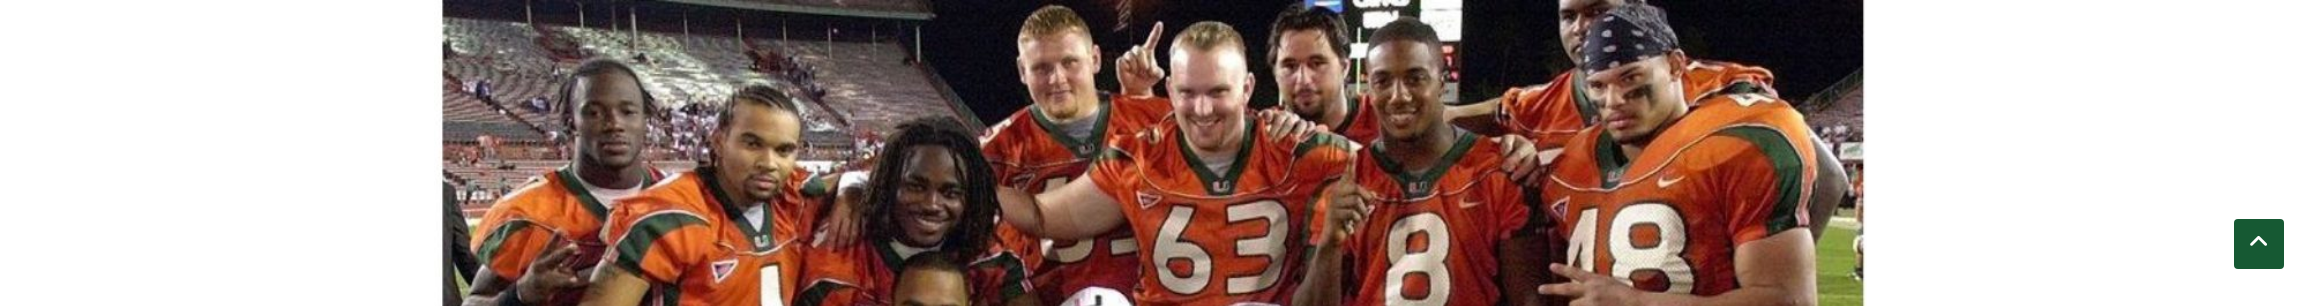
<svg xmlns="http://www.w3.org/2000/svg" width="2308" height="306">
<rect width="100%" height="100%" fill="#fff"/>
<image x="434" y="0" width="1433" height="306" href="media/1.png"/>
<rect x="2234" y="219" width="50" height="50" rx="4" fill="#165933"/>
<image x="2250" y="235" width="17" height="11" href="media/2.png"/>
</svg>
